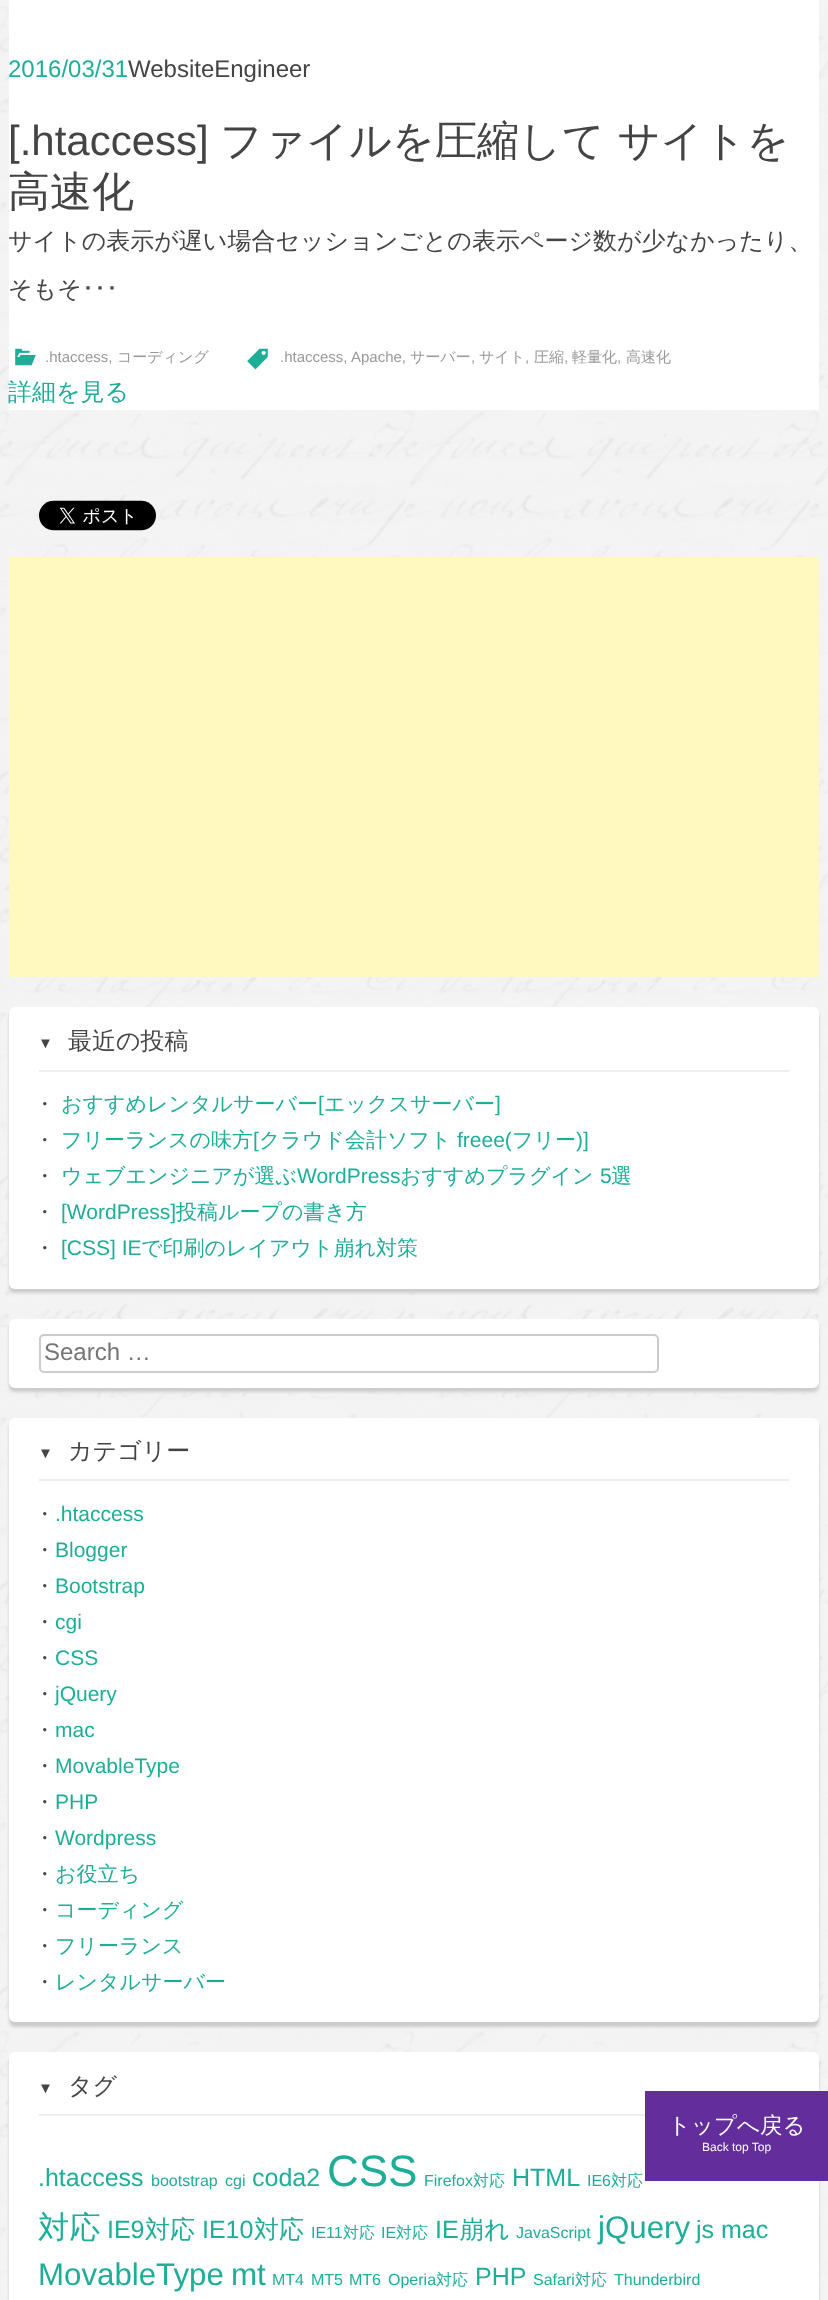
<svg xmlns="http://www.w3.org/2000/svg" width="828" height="2300">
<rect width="100%" height="100%" fill="#f8f8f8"/>
<image x="0" y="0" width="828" height="2300" href="media/1.png"/>
<rect x="9" width="810" height="410" fill="#fff"/>
<text x="8" y="77" style="font-family:Liberation Sans;font-size:24px;fill:#1eae98">2016/03/31</text>
<text x="128" y="77" style="font-family:Liberation Sans;font-size:24px;fill:#444">WebsiteEngineer</text>
<text x="8" y="155" style="font-family:Liberation Sans;font-size:42px;fill:#444">[.htaccess]</text>
<text x="220" y="155" style="font-family:WenQuanYi Zen Hei;font-size:42px;font-weight:500;fill:#444">ファイルを圧縮して サイトを</text>
<text x="8" y="206" style="font-family:WenQuanYi Zen Hei;font-size:42px;font-weight:500;fill:#444">高速化</text>
<text x="8" y="249" style="font-family:WenQuanYi Zen Hei;font-size:24px;font-weight:500;fill:#444">サイトの表示が遅い場合セッションごとの表示ページ数が少なかったり、</text>
<text x="8" y="297" style="font-family:WenQuanYi Zen Hei;font-size:24px;font-weight:500;fill:#444">そもそ</text>
<text x="82" y="297" style="font-family:IPAPGothic;font-size:24px;fill:#444">･･･</text>
<image x="15" y="348" width="21" height="18" href="media/2.png"/>
<text x="45" y="362" style="font-family:Liberation Sans;font-size:15px;fill:#999">.htaccess,</text>
<text x="117" y="362" style="font-family:WenQuanYi Zen Hei;font-size:15px;font-weight:500;fill:#999">コーディング</text>
<image x="247" y="348" width="21" height="22" href="media/3.png"/>
<text x="280" y="362" style="font-family:Liberation Sans;font-size:15px;fill:#999">.htaccess,</text>
<text x="351" y="362" style="font-family:Liberation Sans;font-size:15px;fill:#999">Apache,</text>
<text x="410" y="362" style="font-family:WenQuanYi Zen Hei;font-size:15px;font-weight:500;fill:#999">サーバー</text>
<text x="471" y="362" style="font-family:Liberation Sans;font-size:15px;fill:#999">,</text>
<text x="479" y="362" style="font-family:WenQuanYi Zen Hei;font-size:15px;font-weight:500;fill:#999">サイト</text>
<text x="525" y="362" style="font-family:Liberation Sans;font-size:15px;fill:#999">,</text>
<text x="534" y="362" style="font-family:WenQuanYi Zen Hei;font-size:15px;font-weight:500;fill:#999">圧縮</text>
<text x="564" y="362" style="font-family:Liberation Sans;font-size:15px;fill:#999">,</text>
<text x="572" y="362" style="font-family:WenQuanYi Zen Hei;font-size:15px;font-weight:500;fill:#999">軽量化</text>
<text x="617" y="362" style="font-family:Liberation Sans;font-size:15px;fill:#999">,</text>
<text x="626" y="362" style="font-family:WenQuanYi Zen Hei;font-size:15px;font-weight:500;fill:#999">高速化</text>
<text x="8" y="400" style="font-family:WenQuanYi Zen Hei;font-size:24px;font-weight:500;fill:#1eae98">詳細を見る</text>
<image x="39" y="500" width="117" height="31" href="media/4.png"/>
<rect x="9" y="557" width="810" height="420" fill="#fff9c0"/>
<rect x="9" y="1011" width="810" height="282" rx="6" fill="#ccc" filter="blur(1.5px)"/>
<rect x="9" y="1007" width="810" height="282" rx="6" fill="#fff"/>
<rect x="39" y="1070" width="750" height="2" fill="#eee"/>
<text x="38" y="1048" style="font-family:Liberation Serif;font-size:15px;fill:#444">▼</text>
<text x="68" y="1049" style="font-family:WenQuanYi Zen Hei;font-size:24px;font-weight:500;fill:#444">最近の投稿</text>
<text x="34" y="1111" style="font-family:WenQuanYi Zen Hei;font-size:21px;font-weight:500;fill:#444">・</text>
<text x="61" y="1111" style="font-family:WenQuanYi Zen Hei;font-size:21px;font-weight:500;fill:#1eae98">おすすめレンタルサーバー</text>
<text x="318" y="1111" style="font-family:Liberation Sans;font-size:21px;fill:#1eae98">[</text>
<text x="324" y="1111" style="font-family:WenQuanYi Zen Hei;font-size:21px;font-weight:500;fill:#1eae98">エックスサーバー</text>
<text x="495" y="1111" style="font-family:Liberation Sans;font-size:21px;fill:#1eae98">]</text>
<text x="34" y="1147" style="font-family:WenQuanYi Zen Hei;font-size:21px;font-weight:500;fill:#444">・</text>
<text x="61" y="1147" style="font-family:WenQuanYi Zen Hei;font-size:21px;font-weight:500;fill:#1eae98">フリーランスの味方</text>
<text x="253" y="1147" style="font-family:Liberation Sans;font-size:21px;fill:#1eae98">[</text>
<text x="259" y="1147" style="font-family:WenQuanYi Zen Hei;font-size:21px;font-weight:500;fill:#1eae98">クラウド会計ソフト</text>
<text x="457" y="1147" style="font-family:Liberation Sans;font-size:21px;fill:#1eae98">freee(</text>
<text x="512" y="1147" style="font-family:WenQuanYi Zen Hei;font-size:21px;font-weight:500;fill:#1eae98">フリー</text>
<text x="576" y="1147" style="font-family:Liberation Sans;font-size:21px;fill:#1eae98">)]</text>
<text x="34" y="1183" style="font-family:WenQuanYi Zen Hei;font-size:21px;font-weight:500;fill:#444">・</text>
<text x="61" y="1183" style="font-family:WenQuanYi Zen Hei;font-size:21px;font-weight:500;fill:#1eae98">ウェブエンジニアが選ぶ</text>
<text x="297" y="1183" style="font-family:Liberation Sans;font-size:21px;fill:#1eae98">WordPress</text>
<text x="400" y="1183" style="font-family:WenQuanYi Zen Hei;font-size:21px;font-weight:500;fill:#1eae98">おすすめプラグイン</text>
<text x="600" y="1183" style="font-family:Liberation Sans;font-size:21px;fill:#1eae98">5</text>
<text x="611" y="1183" style="font-family:WenQuanYi Zen Hei;font-size:21px;font-weight:500;fill:#1eae98">選</text>
<text x="34" y="1219" style="font-family:WenQuanYi Zen Hei;font-size:21px;font-weight:500;fill:#444">・</text>
<text x="61" y="1219" style="font-family:Liberation Sans;font-size:21px;fill:#1eae98">[WordPress]</text>
<text x="176" y="1219" style="font-family:WenQuanYi Zen Hei;font-size:21px;font-weight:500;fill:#1eae98">投稿ループの書き方</text>
<text x="34" y="1255" style="font-family:WenQuanYi Zen Hei;font-size:21px;font-weight:500;fill:#444">・</text>
<text x="61" y="1255" style="font-family:Liberation Sans;font-size:21px;fill:#1eae98">[CSS] IE</text>
<text x="141" y="1255" style="font-family:WenQuanYi Zen Hei;font-size:21px;font-weight:500;fill:#1eae98">で印刷のレイアウト崩れ対策</text>
<rect x="9" y="1323" width="810" height="69" rx="6" fill="#ccc" filter="blur(1.5px)"/>
<rect x="9" y="1319" width="810" height="69" rx="6" fill="#fff"/>
<rect x="40" y="1335" width="618" height="37" rx="4" fill="none" stroke="#ccc" stroke-width="2"/>
<text x="44" y="1360" style="font-family:Liberation Sans;font-size:24px;fill:#757575">Search …</text>
<rect x="9" y="1422" width="810" height="605" rx="6" fill="#ccc" filter="blur(1.5px)"/>
<rect x="9" y="1418" width="810" height="604" rx="6" fill="#fff"/>
<rect x="39" y="1479" width="750" height="2" fill="#eee"/>
<text x="38" y="1458" style="font-family:Liberation Serif;font-size:15px;fill:#444">▼</text>
<text x="68" y="1459" style="font-family:WenQuanYi Zen Hei;font-size:24px;font-weight:500;fill:#444">カテゴリー</text>
<text x="34" y="1521" style="font-family:WenQuanYi Zen Hei;font-size:21px;font-weight:500;fill:#444">・</text>
<text x="55" y="1521" style="font-family:Liberation Sans;font-size:21px;fill:#1eae98">.htaccess</text>
<text x="34" y="1557" style="font-family:WenQuanYi Zen Hei;font-size:21px;font-weight:500;fill:#444">・</text>
<text x="55" y="1557" style="font-family:Liberation Sans;font-size:21px;fill:#1eae98">Blogger</text>
<text x="34" y="1593" style="font-family:WenQuanYi Zen Hei;font-size:21px;font-weight:500;fill:#444">・</text>
<text x="55" y="1593" style="font-family:Liberation Sans;font-size:21px;fill:#1eae98">Bootstrap</text>
<text x="34" y="1629" style="font-family:WenQuanYi Zen Hei;font-size:21px;font-weight:500;fill:#444">・</text>
<text x="55" y="1629" style="font-family:Liberation Sans;font-size:21px;fill:#1eae98">cgi</text>
<text x="34" y="1665" style="font-family:WenQuanYi Zen Hei;font-size:21px;font-weight:500;fill:#444">・</text>
<text x="55" y="1665" style="font-family:Liberation Sans;font-size:21px;fill:#1eae98">CSS</text>
<text x="34" y="1701" style="font-family:WenQuanYi Zen Hei;font-size:21px;font-weight:500;fill:#444">・</text>
<text x="55" y="1701" style="font-family:Liberation Sans;font-size:21px;fill:#1eae98">jQuery</text>
<text x="34" y="1737" style="font-family:WenQuanYi Zen Hei;font-size:21px;font-weight:500;fill:#444">・</text>
<text x="55" y="1737" style="font-family:Liberation Sans;font-size:21px;fill:#1eae98">mac</text>
<text x="34" y="1773" style="font-family:WenQuanYi Zen Hei;font-size:21px;font-weight:500;fill:#444">・</text>
<text x="55" y="1773" style="font-family:Liberation Sans;font-size:21px;fill:#1eae98">MovableType</text>
<text x="34" y="1809" style="font-family:WenQuanYi Zen Hei;font-size:21px;font-weight:500;fill:#444">・</text>
<text x="55" y="1809" style="font-family:Liberation Sans;font-size:21px;fill:#1eae98">PHP</text>
<text x="34" y="1845" style="font-family:WenQuanYi Zen Hei;font-size:21px;font-weight:500;fill:#444">・</text>
<text x="55" y="1845" style="font-family:Liberation Sans;font-size:21px;fill:#1eae98">Wordpress</text>
<text x="34" y="1881" style="font-family:WenQuanYi Zen Hei;font-size:21px;font-weight:500;fill:#444">・</text>
<text x="55" y="1881" style="font-family:WenQuanYi Zen Hei;font-size:21px;font-weight:500;fill:#1eae98">お役立ち</text>
<text x="34" y="1917" style="font-family:WenQuanYi Zen Hei;font-size:21px;font-weight:500;fill:#444">・</text>
<text x="55" y="1917" style="font-family:WenQuanYi Zen Hei;font-size:21px;font-weight:500;fill:#1eae98">コーディング</text>
<text x="34" y="1953" style="font-family:WenQuanYi Zen Hei;font-size:21px;font-weight:500;fill:#444">・</text>
<text x="55" y="1953" style="font-family:WenQuanYi Zen Hei;font-size:21px;font-weight:500;fill:#1eae98">フリーランス</text>
<text x="34" y="1989" style="font-family:WenQuanYi Zen Hei;font-size:21px;font-weight:500;fill:#444">・</text>
<text x="55" y="1989" style="font-family:WenQuanYi Zen Hei;font-size:21px;font-weight:500;fill:#1eae98">レンタルサーバー</text>
<rect x="9" y="2057" width="810" height="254" rx="6" fill="#ccc" filter="blur(1.5px)"/>
<rect x="9" y="2052" width="810" height="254" rx="6" fill="#fff"/>
<rect x="39" y="2114" width="606" height="2" fill="#eee"/>
<text x="38" y="2093" style="font-family:Liberation Serif;font-size:15px;fill:#444">▼</text>
<text x="68" y="2094" style="font-family:WenQuanYi Zen Hei;font-size:24px;font-weight:500;fill:#444">タグ</text>
<text x="38" y="2186" style="font-family:Liberation Sans;font-size:25px;fill:#1eae98">.htaccess</text>
<text x="151" y="2186" style="font-family:Liberation Sans;font-size:16px;fill:#1eae98">bootstrap</text>
<text x="225" y="2186" style="font-family:Liberation Sans;font-size:16px;fill:#1eae98">cgi</text>
<text x="252" y="2186" style="font-family:Liberation Sans;font-size:25px;fill:#1eae98">coda2</text>
<text x="327" y="2186" style="font-family:Liberation Sans;font-size:44px;fill:#1eae98">CSS</text>
<text x="424" y="2186" style="font-family:Liberation Sans;font-size:16px;fill:#1eae98">Firefox</text>
<text x="473" y="2186" style="font-family:WenQuanYi Zen Hei;font-size:16px;font-weight:500;fill:#1eae98">対応</text>
<text x="512" y="2186" style="font-family:Liberation Sans;font-size:25px;fill:#1eae98">HTML</text>
<text x="587" y="2186" style="font-family:Liberation Sans;font-size:16px;fill:#1eae98">IE6</text>
<text x="611" y="2186" style="font-family:WenQuanYi Zen Hei;font-size:16px;font-weight:500;fill:#1eae98">対応</text>
<text x="38" y="2238" style="font-family:WenQuanYi Zen Hei;font-size:31.25px;font-weight:500;fill:#1eae98">対応</text>
<text x="107" y="2238" style="font-family:Liberation Sans;font-size:25px;fill:#1eae98">IE9</text>
<text x="145" y="2238" style="font-family:WenQuanYi Zen Hei;font-size:25px;font-weight:500;fill:#1eae98">対応</text>
<text x="202" y="2238" style="font-family:Liberation Sans;font-size:25px;fill:#1eae98">IE10</text>
<text x="254" y="2238" style="font-family:WenQuanYi Zen Hei;font-size:25px;font-weight:500;fill:#1eae98">対応</text>
<text x="311" y="2238" style="font-family:Liberation Sans;font-size:16px;fill:#1eae98">IE11</text>
<text x="343" y="2238" style="font-family:WenQuanYi Zen Hei;font-size:16px;font-weight:500;fill:#1eae98">対応</text>
<text x="381" y="2238" style="font-family:Liberation Sans;font-size:16px;fill:#1eae98">IE</text>
<text x="396" y="2238" style="font-family:WenQuanYi Zen Hei;font-size:16px;font-weight:500;fill:#1eae98">対応</text>
<text x="435" y="2238" style="font-family:Liberation Sans;font-size:25px;fill:#1eae98">IE</text>
<text x="459" y="2238" style="font-family:WenQuanYi Zen Hei;font-size:25px;font-weight:500;fill:#1eae98">崩れ</text>
<text x="516" y="2238" style="font-family:Liberation Sans;font-size:16px;fill:#1eae98">JavaScript</text>
<text x="598" y="2238" style="font-family:Liberation Sans;font-size:31.25px;fill:#1eae98">jQuery</text>
<text x="696" y="2238" style="font-family:Liberation Sans;font-size:25px;fill:#1eae98">js</text>
<text x="721" y="2238" style="font-family:Liberation Sans;font-size:25px;fill:#1eae98">mac</text>
<text x="38" y="2285" style="font-family:Liberation Sans;font-size:31.25px;fill:#1eae98">MovableType</text>
<text x="231" y="2285" style="font-family:Liberation Sans;font-size:31.25px;fill:#1eae98">mt</text>
<text x="272" y="2285" style="font-family:Liberation Sans;font-size:16px;fill:#1eae98">MT4</text>
<text x="311" y="2285" style="font-family:Liberation Sans;font-size:16px;fill:#1eae98">MT5</text>
<text x="349" y="2285" style="font-family:Liberation Sans;font-size:16px;fill:#1eae98">MT6</text>
<text x="388" y="2285" style="font-family:Liberation Sans;font-size:16px;fill:#1eae98">Operia</text>
<text x="436" y="2285" style="font-family:WenQuanYi Zen Hei;font-size:16px;font-weight:500;fill:#1eae98">対応</text>
<text x="475" y="2285" style="font-family:Liberation Sans;font-size:25px;fill:#1eae98">PHP</text>
<text x="533" y="2285" style="font-family:Liberation Sans;font-size:16px;fill:#1eae98">Safari</text>
<text x="575" y="2285" style="font-family:WenQuanYi Zen Hei;font-size:16px;font-weight:500;fill:#1eae98">対応</text>
<text x="614" y="2285" style="font-family:Liberation Sans;font-size:16px;fill:#1eae98">Thunderbird</text>
<rect x="645" y="2091" width="183" height="90" fill="#632e9b"/>
<text x="668" y="2133" style="font-family:WenQuanYi Zen Hei;font-size:22.5px;font-weight:500;fill:#fff">トップへ戻る</text>
<text x="702" y="2151" style="font-family:Liberation Sans;font-size:12px;fill:#fff">Back top Top</text>
</svg>
